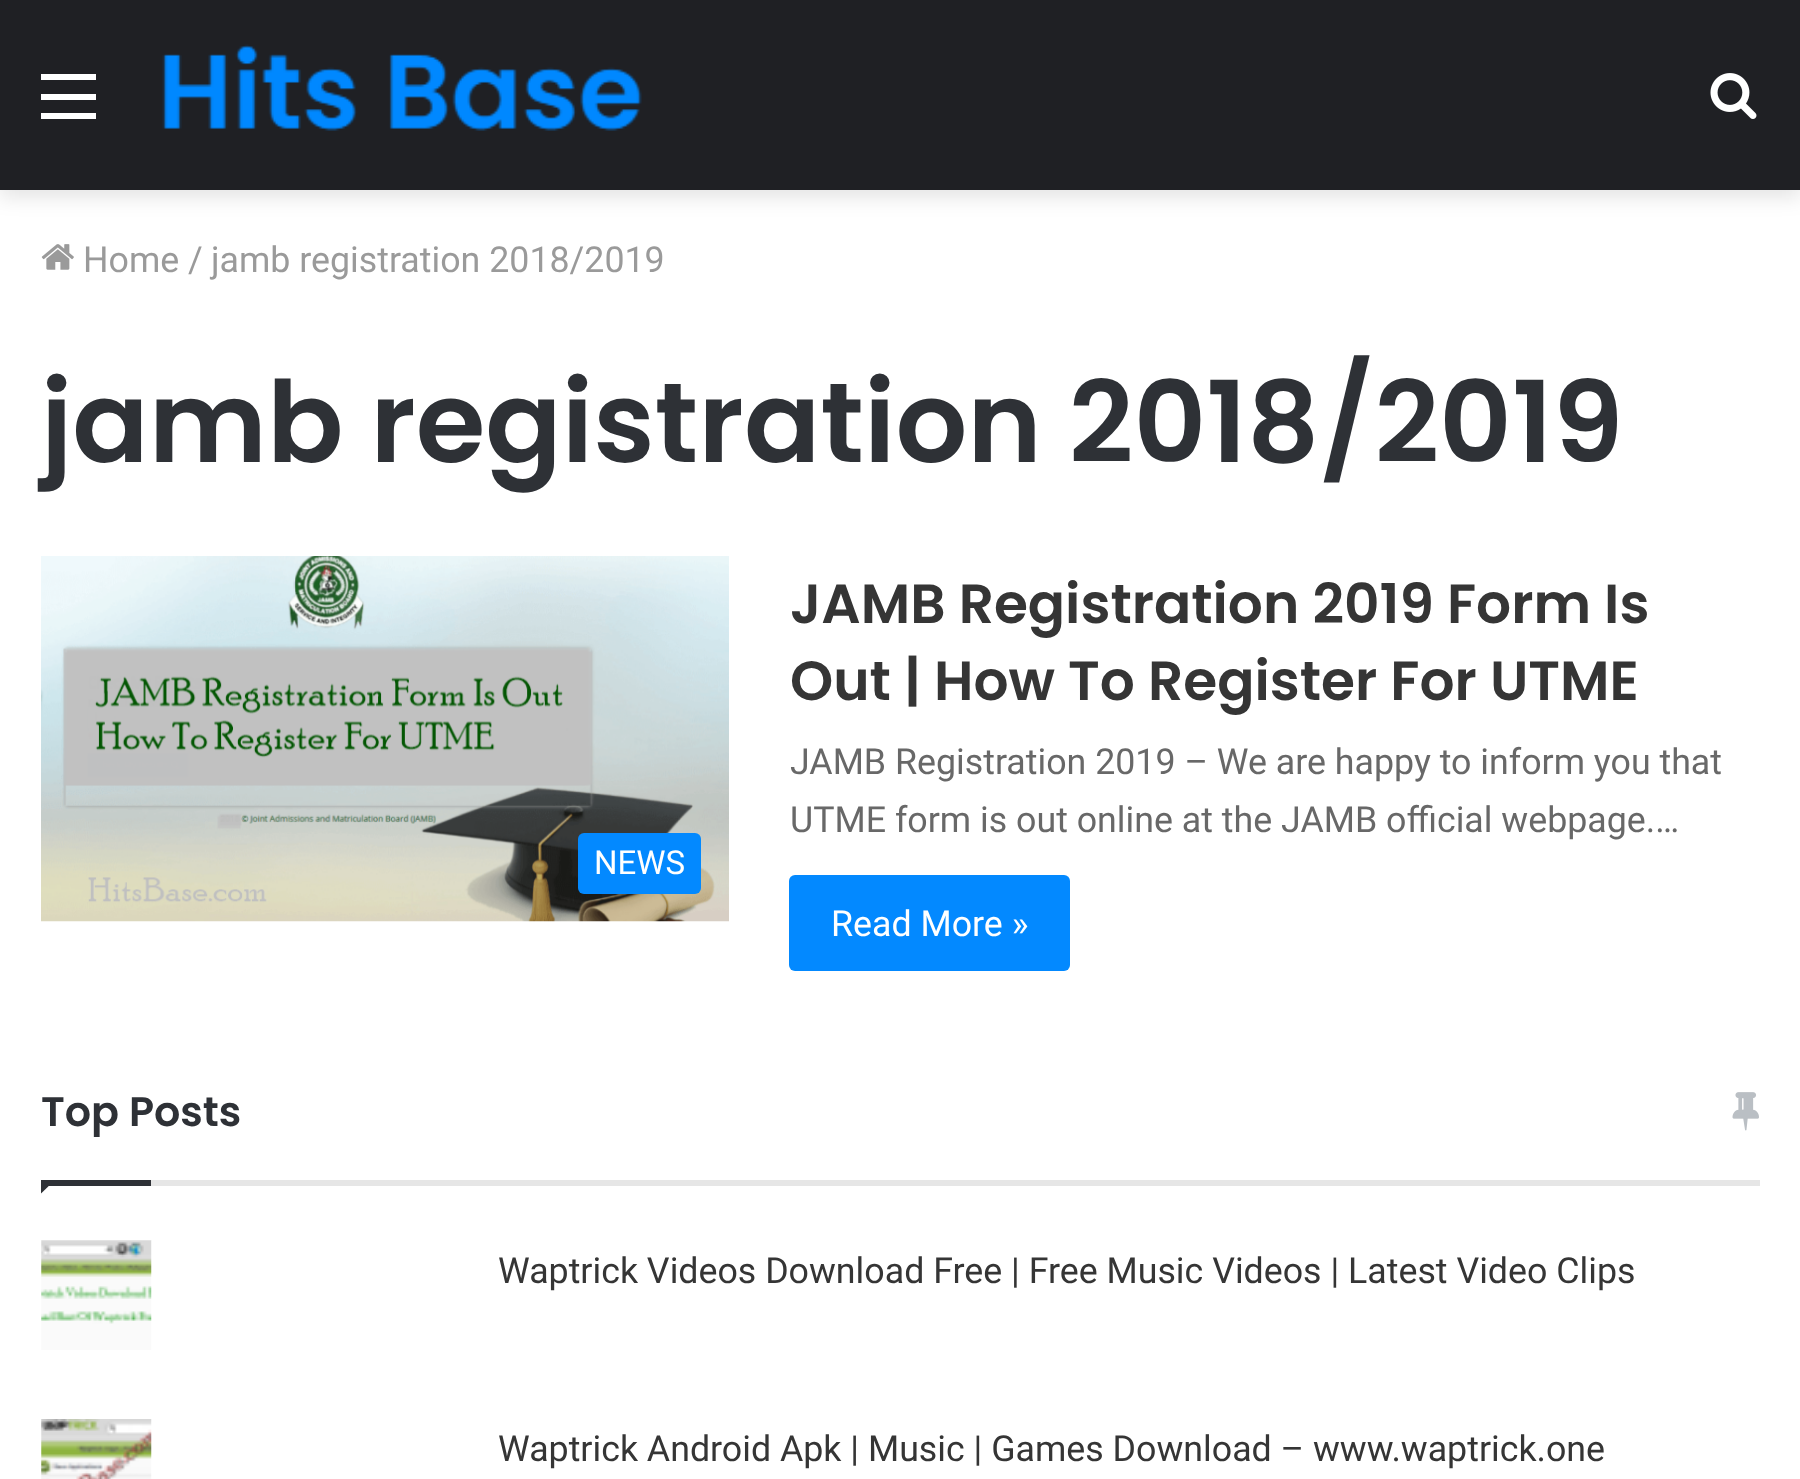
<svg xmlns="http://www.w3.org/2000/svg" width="1800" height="1479">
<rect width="100%" height="100%" fill="#fff"/>
<rect y="8" width="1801" height="190" fill="#0000001a" filter="blur(9.5px)"/>
<rect width="1800" height="190" fill="#1f2024"/>
<rect x="41" y="94" width="55" height="6" fill="#fff"/>
<rect x="41" y="74" width="55" height="6" fill="#fff"/>
<rect x="41" y="113" width="55" height="6" fill="#fff"/>
<image x="162" y="44" width="480" height="87" href="media/1.png"/>
<image x="1710" y="73" width="47" height="46" href="media/2.png"/>
<image x="41" y="244" width="33" height="26" href="media/3.png"/>
<text x="83" y="272" style="font-family:Roboto;font-size:35.75px;fill:#9a9a9a">Home</text>
<text x="188" y="272" style="font-family:Roboto;font-size:35.75px;fill:#9a9a9a">/</text>
<text x="211" y="272" style="font-family:Roboto;font-size:35.75px;fill:#9a9a9a">jamb registration 2018/2019</text>
<text x="41" y="462" style="font-family:Poppins;font-size:112.75px;font-weight:600;fill:#2e3136">jamb registration 2018/2019</text>
<image x="41" y="556" width="688" height="366" href="media/4.png"/>
<rect x="578" y="833" width="123" height="61" rx="6" fill="#0389ff"/>
<text x="594" y="874" style="font-family:Roboto;font-size:33px;fill:#fff">NEWS</text>
<text x="790" y="623" style="font-family:Poppins;font-size:55px;font-weight:600;fill:#353535">JAMB Registration 2019 Form Is</text>
<text x="790" y="700" style="font-family:Poppins;font-size:55px;font-weight:600;fill:#353535">Out | How To Register For UTME</text>
<text x="790" y="774" style="font-family:Roboto;font-size:35.75px;fill:#686868">JAMB Registration 2019 – We are happy to inform you that</text>
<text x="790" y="832" style="font-family:Roboto;font-size:35.75px;fill:#686868">UTME form is out online at the JAMB official webpage.…</text>
<rect x="789" y="875" width="281" height="96" rx="6" fill="#0389ff"/>
<text x="831" y="936" style="font-family:Roboto;font-size:35.75px;fill:#fff">Read More »</text>
<rect x="151" y="1180" width="1609" height="6" fill="#e6e6e6"/>
<text x="41" y="1126" style="font-family:Poppins;font-size:41.25px;font-weight:600;fill:#2e3136">Top Posts</text>
<image x="1732" y="1092" width="27" height="39" href="media/5.png"/>
<path d="M41 1180h14l-14 13.5z" fill="#2e3136"/>
<rect x="41" y="1180" width="110" height="6" fill="#2e3136"/>
<image x="41" y="1240" width="111" height="110" href="media/6.png"/>
<text x="498" y="1283" style="font-family:Roboto;font-size:35.75px;fill:#353535">Waptrick Videos Download Free | Free Music Videos | Latest Video Clips</text>
<image x="41" y="1419" width="111" height="60" href="media/7.png"/>
<text x="498" y="1461" style="font-family:Roboto;font-size:35.75px;fill:#353535">Waptrick Android Apk | Music | Games Download – www.waptrick.one</text>
</svg>
